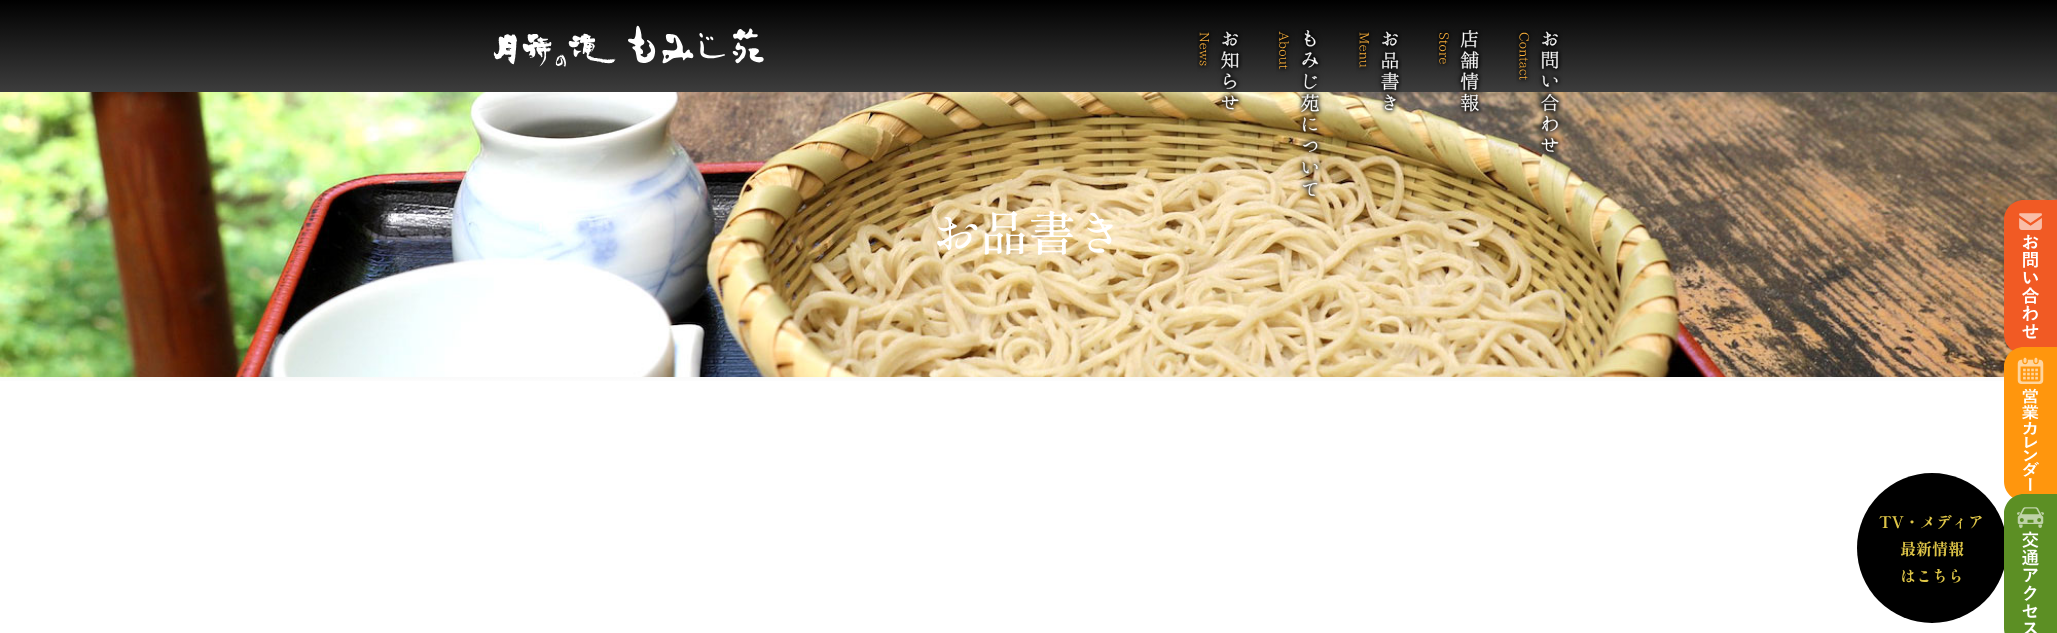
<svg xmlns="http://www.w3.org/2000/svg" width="2057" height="633">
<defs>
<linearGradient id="g1" gradientUnits="userSpaceOnUse" x1="1029" y1="0" x2="1029" y2="385"><stop offset="0" stop-color="#000"/><stop offset="1" stop-color="#fff"/></linearGradient>
</defs>
<rect width="100%" height="100%" fill="#fff"/>
<rect width="2057" height="381" fill="url(#g1)"/>
<image x="493" y="25" width="271" height="42" href="media/1.png"/>
<image x="0" y="92" width="2057" height="285" href="media/7.png"/>
<image x="1197" y="30" width="46" height="84" href="media/2.png"/>
<image x="1276" y="29" width="48" height="172" href="media/3.png"/>
<image x="1356" y="30" width="46" height="85" href="media/4.png"/>
<image x="1437" y="29" width="46" height="87" href="media/5.png"/>
<image x="1516" y="30" width="47" height="127" href="media/6.png"/>
<text x="932" y="251" style="font-family:'Shippori Mincho B1';font-size:48px;font-weight:500;fill:#fff">お品書き</text>
<image x="2004" y="200" width="53" height="151" href="media/8.png"/>
<circle cx="1932" cy="548" r="75" fill="#000"/>
<image x="2004" y="347" width="53" height="151" href="media/9.png"/>
<image x="2004" y="494" width="53" height="139" href="media/10.png"/>
<text x="1879" y="528" style="font-family:'Shippori Mincho B1';font-size:16px;font-weight:bold;fill:#dec547">TV・メディア</text>
<text x="1900" y="555" style="font-family:'Shippori Mincho B1';font-size:16px;font-weight:bold;fill:#dec547">最新情報</text>
<text x="1900" y="582" style="font-family:'Shippori Mincho B1';font-size:16px;font-weight:bold;fill:#dec547">はこちら</text>
</svg>
